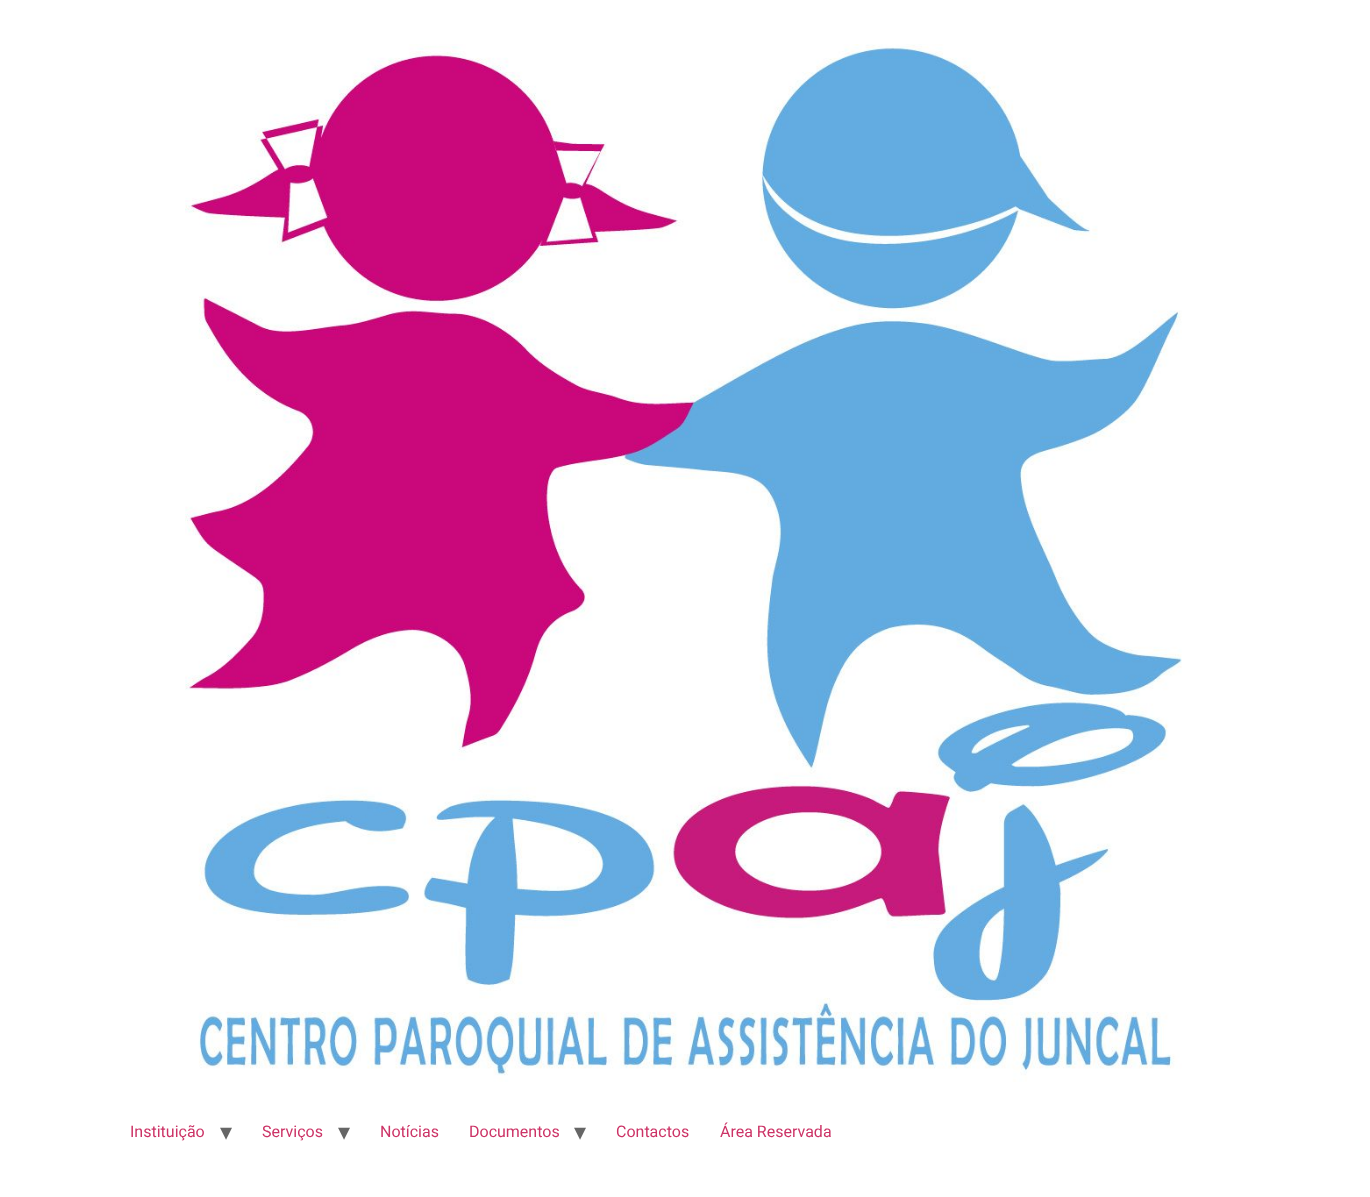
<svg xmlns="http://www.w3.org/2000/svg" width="1370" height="1197">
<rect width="100%" height="100%" fill="#fff"/>
<image x="185" y="44" width="997" height="1038" href="media/1.png"/>
<text x="130" y="1137" style="font-family:Roboto;font-size:16px;fill:#c36">Instituição</text>
<text x="220" y="1140" style="font-family:DejaVu Sans;font-size:24px;fill:#666">▾</text>
<text x="262" y="1137" style="font-family:Roboto;font-size:16px;fill:#c36">Serviços</text>
<text x="338" y="1140" style="font-family:DejaVu Sans;font-size:24px;fill:#666">▾</text>
<text x="380" y="1137" style="font-family:Roboto;font-size:16px;fill:#c36">Notícias</text>
<text x="469" y="1137" style="font-family:Roboto;font-size:16px;fill:#c36">Documentos</text>
<text x="574" y="1140" style="font-family:DejaVu Sans;font-size:24px;fill:#666">▾</text>
<text x="616" y="1137" style="font-family:Roboto;font-size:16px;fill:#c36">Contactos</text>
<text x="720" y="1137" style="font-family:Roboto;font-size:16px;fill:#c36">Área Reservada</text>
</svg>
